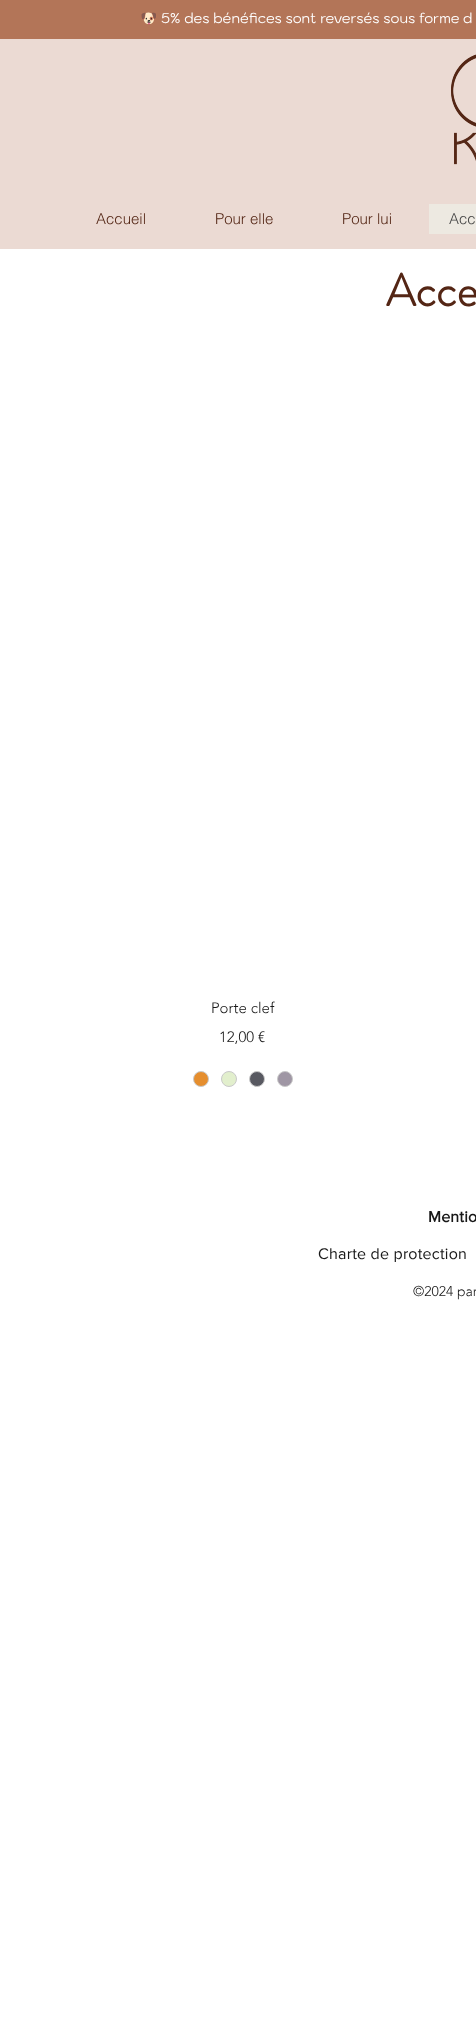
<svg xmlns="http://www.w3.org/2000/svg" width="476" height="2021">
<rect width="100%" height="100%" fill="#fff"/>
<rect width="476" height="39" fill="#b37558"/>
<text x="140" y="23" style="font-family:Noto Color Emoji;font-size:14px;fill:#fff">🐶</text>
<text x="161" y="23" style="font-family:Kodchasan;font-size:14px;fill:#fff">5% des bénéfices sont reversés sous forme d</text>
<rect y="39" width="476" height="210" fill="#ebdad3"/>
<image x="451" y="54" width="25" height="111" href="media/1.png"/>
<text x="96" y="224" style="font-family:helvetica;font-size:15px;font-weight:300;fill:#542615">Accueil</text>
<text x="215" y="224" style="font-family:helvetica;font-size:15px;font-weight:300;fill:#542615">Pour elle</text>
<text x="342" y="224" style="font-family:helvetica;font-size:15px;font-weight:300;fill:#542615">Pour lui</text>
<rect x="429" y="204" width="47" height="30" fill="#ede9e1"/>
<text x="449" y="224" style="font-family:helvetica;font-size:15px;font-weight:300;fill:#444">Acc</text>
<text x="386" y="306" style="font-family:'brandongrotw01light';font-size:45px;font-weight:bold;fill:#542615">Acce</text>
<text x="211" y="1013" style="font-family:'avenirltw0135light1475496';font-size:15px;font-weight:300;fill:#181818">Porte clef</text>
<text x="219" y="1042" style="font-family:'avenirltw0135light1475496';font-size:15px;font-weight:300;fill:#181818">12,00 €</text>
<circle cx="201" cy="1079" r="7.5" fill="#e58e2e" stroke="#c9c9c9"/>
<circle cx="229" cy="1079" r="7.5" fill="#e2efcd" stroke="#c9c9c9"/>
<circle cx="257" cy="1079" r="7.5" fill="#585961" stroke="#c9c9c9"/>
<circle cx="285" cy="1079" r="7.5" fill="#9f96a4" stroke="#c9c9c9"/>
<text x="428" y="1222" style="font-family:'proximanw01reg';font-size:16px;font-weight:bold;letter-spacing:0.2px;fill:#181818">Mentio</text>
<text x="318" y="1259" style="font-family:'proximanw01reg';font-size:16px;letter-spacing:0.2px;fill:#181818">Charte de protection</text>
<text x="413" y="1296" style="font-family:'avenirltw0135light1475496';font-size:14px;font-weight:300;fill:#181818">©2024 par</text>
</svg>
